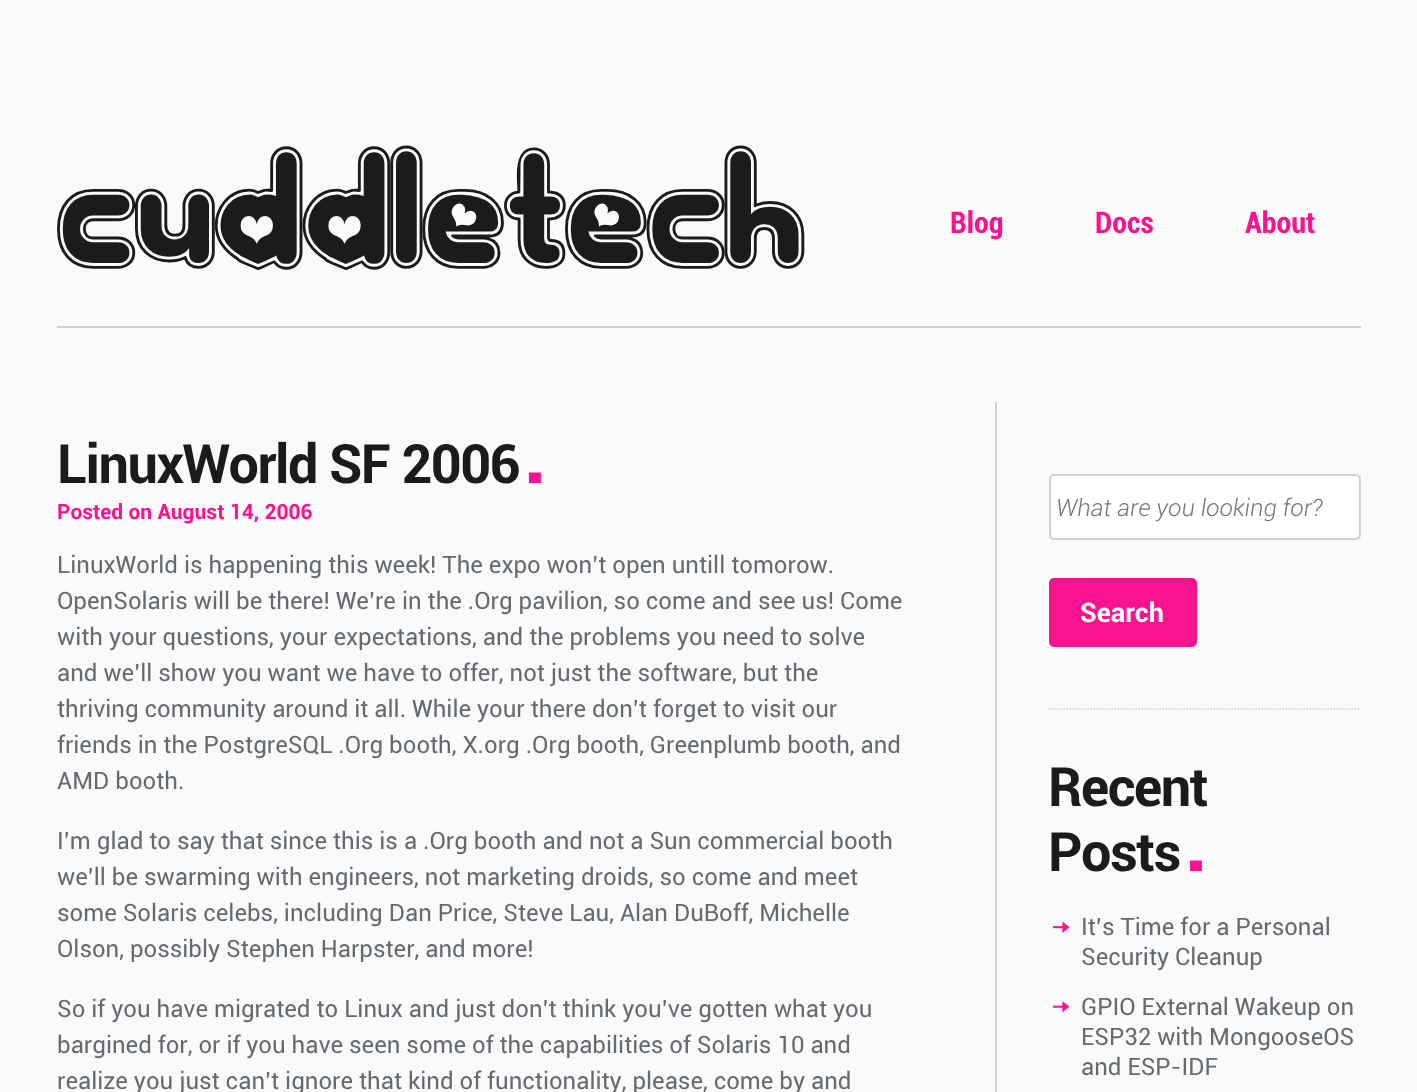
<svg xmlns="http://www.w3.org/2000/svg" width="1417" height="1092">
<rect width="100%" height="100%" fill="#fafafa"/>
<rect x="57" y="326" width="1304" height="2" fill="#cad2d7"/>
<text x="57" y="263" style="font-family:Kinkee;font-size:144px;font-weight:bold;fill:#1c1a1b">cuddletech</text>
<text x="950" y="233" style="font-family:'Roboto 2';font-size:30px;font-weight:bold;fill:#fa1291">Blog</text>
<text x="1095" y="233" style="font-family:'Roboto 2';font-size:30px;font-weight:bold;fill:#fa1291">Docs</text>
<text x="1245" y="233" style="font-family:'Roboto 2';font-size:30px;font-weight:bold;fill:#fa1291">About</text>
<text x="57" y="483" style="font-family:Roboto;font-size:54px;font-weight:bold;letter-spacing:-1.5px;fill:#1c1a1b">LinuxWorld SF 2006</text>
<text x="523" y="483" style="font-family:Roboto;font-size:84px;font-weight:bold;letter-spacing:-1.5px;fill:#fa1291">.</text>
<text x="57" y="519" style="font-family:Roboto;font-size:21px;font-weight:bold;fill:#fa1291">Posted on August 14, 2006</text>
<text x="57" y="573" style="font-family:Roboto;font-size:24px;fill:#656a6f">LinuxWorld is happening this week! The expo won’t open untill tomorow.</text>
<text x="57" y="609" style="font-family:Roboto;font-size:24px;fill:#656a6f">OpenSolaris will be there! We’re in the .Org pavilion, so come and see us! Come</text>
<text x="57" y="645" style="font-family:Roboto;font-size:24px;fill:#656a6f">with your questions, your expectations, and the problems you need to solve</text>
<text x="57" y="681" style="font-family:Roboto;font-size:24px;fill:#656a6f">and we’ll show you want we have to offer, not just the software, but the</text>
<text x="57" y="717" style="font-family:Roboto;font-size:24px;fill:#656a6f">thriving community around it all. While your there don’t forget to visit our</text>
<text x="57" y="753" style="font-family:Roboto;font-size:24px;fill:#656a6f">friends in the PostgreSQL .Org booth, X.org .Org booth, Greenplumb booth, and</text>
<text x="57" y="789" style="font-family:Roboto;font-size:24px;fill:#656a6f">AMD booth.</text>
<text x="57" y="849" style="font-family:Roboto;font-size:24px;fill:#656a6f">I’m glad to say that since this is a .Org booth and not a Sun commercial booth</text>
<text x="57" y="885" style="font-family:Roboto;font-size:24px;fill:#656a6f">we’ll be swarming with engineers, not marketing droids, so come and meet</text>
<text x="57" y="921" style="font-family:Roboto;font-size:24px;fill:#656a6f">some Solaris celebs, including Dan Price, Steve Lau, Alan DuBoff, Michelle</text>
<text x="57" y="957" style="font-family:Roboto;font-size:24px;fill:#656a6f">Olson, possibly Stephen Harpster, and more!</text>
<text x="57" y="1017" style="font-family:Roboto;font-size:24px;fill:#656a6f">So if you have migrated to Linux and just don’t think you’ve gotten what you</text>
<text x="57" y="1053" style="font-family:Roboto;font-size:24px;fill:#656a6f">bargined for, or if you have seen some of the capabilities of Solaris 10 and</text>
<text x="57" y="1089" style="font-family:Roboto;font-size:24px;fill:#656a6f">realize you just can’t ignore that kind of functionality, please, come by and</text>
<rect x="995" y="402" width="2" height="690" fill="#cad2d7"/>
<rect x="1050" y="475" width="310" height="64" rx="4" fill="#fff" stroke="#cad2d7" stroke-width="2"/>
<text x="1056" y="516" style="font-family:Roboto;font-size:24px;font-weight:300;font-style:italic;fill:#757575">What are you looking for?</text>
<rect x="1049" y="578" width="148" height="69" rx="5" fill="#fa1291"/>
<text x="1080" y="622" style="font-family:Roboto;font-size:27px;font-weight:bold;fill:#fff">Search</text>
<path d="M1048.5 709h312" fill="none" stroke="#cad2d7" stroke-width="1.5" stroke-dasharray="1.5 1.5"/>
<text x="1048" y="806" style="font-family:Roboto;font-size:54px;font-weight:bold;letter-spacing:-1.5px;fill:#1c1a1b">Recent</text>
<text x="1048" y="871" style="font-family:Roboto;font-size:54px;font-weight:bold;letter-spacing:-1.5px;fill:#1c1a1b">Posts</text>
<text x="1184" y="871" style="font-family:Roboto;font-size:84px;font-weight:bold;letter-spacing:-1.5px;fill:#fa1291">.</text>
<image x="1053" y="921" width="17" height="12" href="media/1.png"/>
<text x="1081" y="935" style="font-family:Roboto;font-size:24px;fill:#656a6f">It’s Time for a Personal</text>
<text x="1081" y="965" style="font-family:Roboto;font-size:24px;fill:#656a6f">Security Cleanup</text>
<image x="1053" y="1001" width="17" height="12" href="media/2.png"/>
<text x="1081" y="1015" style="font-family:Roboto;font-size:24px;fill:#656a6f">GPIO External Wakeup on</text>
<text x="1081" y="1045" style="font-family:Roboto;font-size:24px;fill:#656a6f">ESP32 with MongooseOS</text>
<text x="1081" y="1075" style="font-family:Roboto;font-size:24px;fill:#656a6f">and ESP-IDF</text>
</svg>
